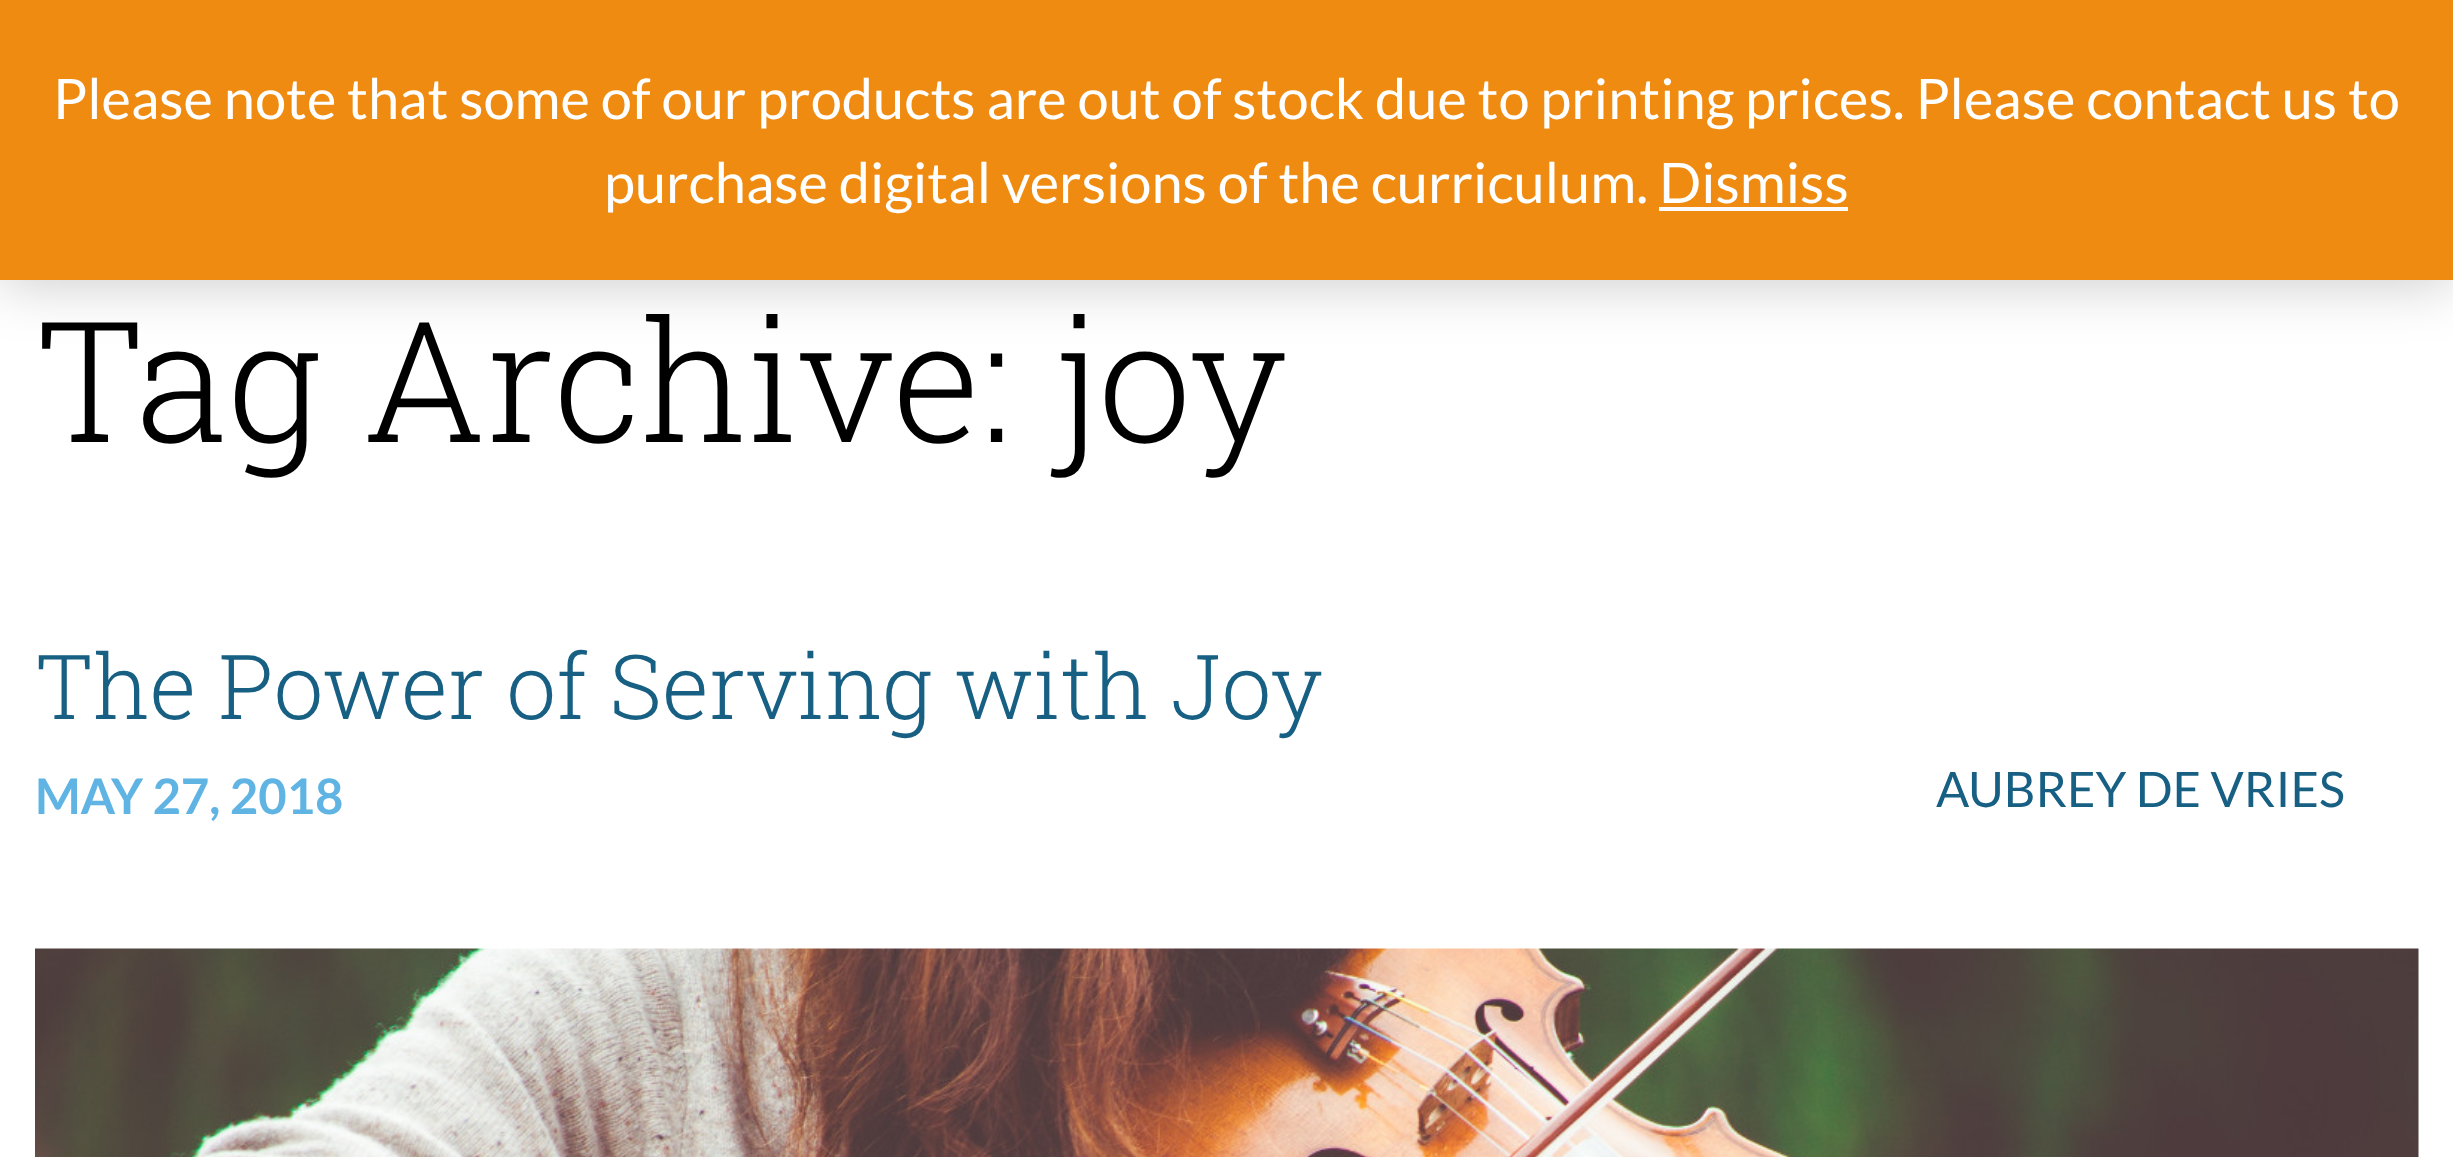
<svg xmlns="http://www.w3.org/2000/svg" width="2453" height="1157">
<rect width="100%" height="100%" fill="#fff"/>
<rect y="4" width="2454" height="280" fill="#00000033" filter="blur(28px)"/>
<rect width="2453" height="280" fill="#ef8b10"/>
<text x="53" y="119" style="font-family:Lato;font-size:56px;fill:#fff">Please note that some of our products are out of stock due to printing prices. Please contact us to</text>
<text x="604" y="203" style="font-family:Lato;font-size:56px;fill:#fff">purchase digital versions of the curriculum.</text>
<text x="1659" y="203" style="font-family:Lato;font-size:56px;fill:#fff">Dismiss</text>
<rect x="1659" y="207" width="189" height="4" fill="#fcfbfe"/>
<text x="35" y="442" style="font-family:Roboto Slab;font-size:168px;font-weight:300;fill:#000">Tag Archive: joy</text>
<text x="35" y="719" style="font-family:Roboto Slab;font-size:89.6px;font-weight:300;fill:#176083">The Power of Serving with Joy</text>
<text x="35" y="814" style="font-family:Lato;font-size:49px;font-weight:bold;fill:#60b4e3">MAY 27, 2018</text>
<text x="1936" y="807" style="font-family:Lato;font-size:49px;fill:#176083">AUBREY DE VRIES</text>
<image x="35" y="948" width="2384" height="209" href="media/1.png"/>
</svg>
